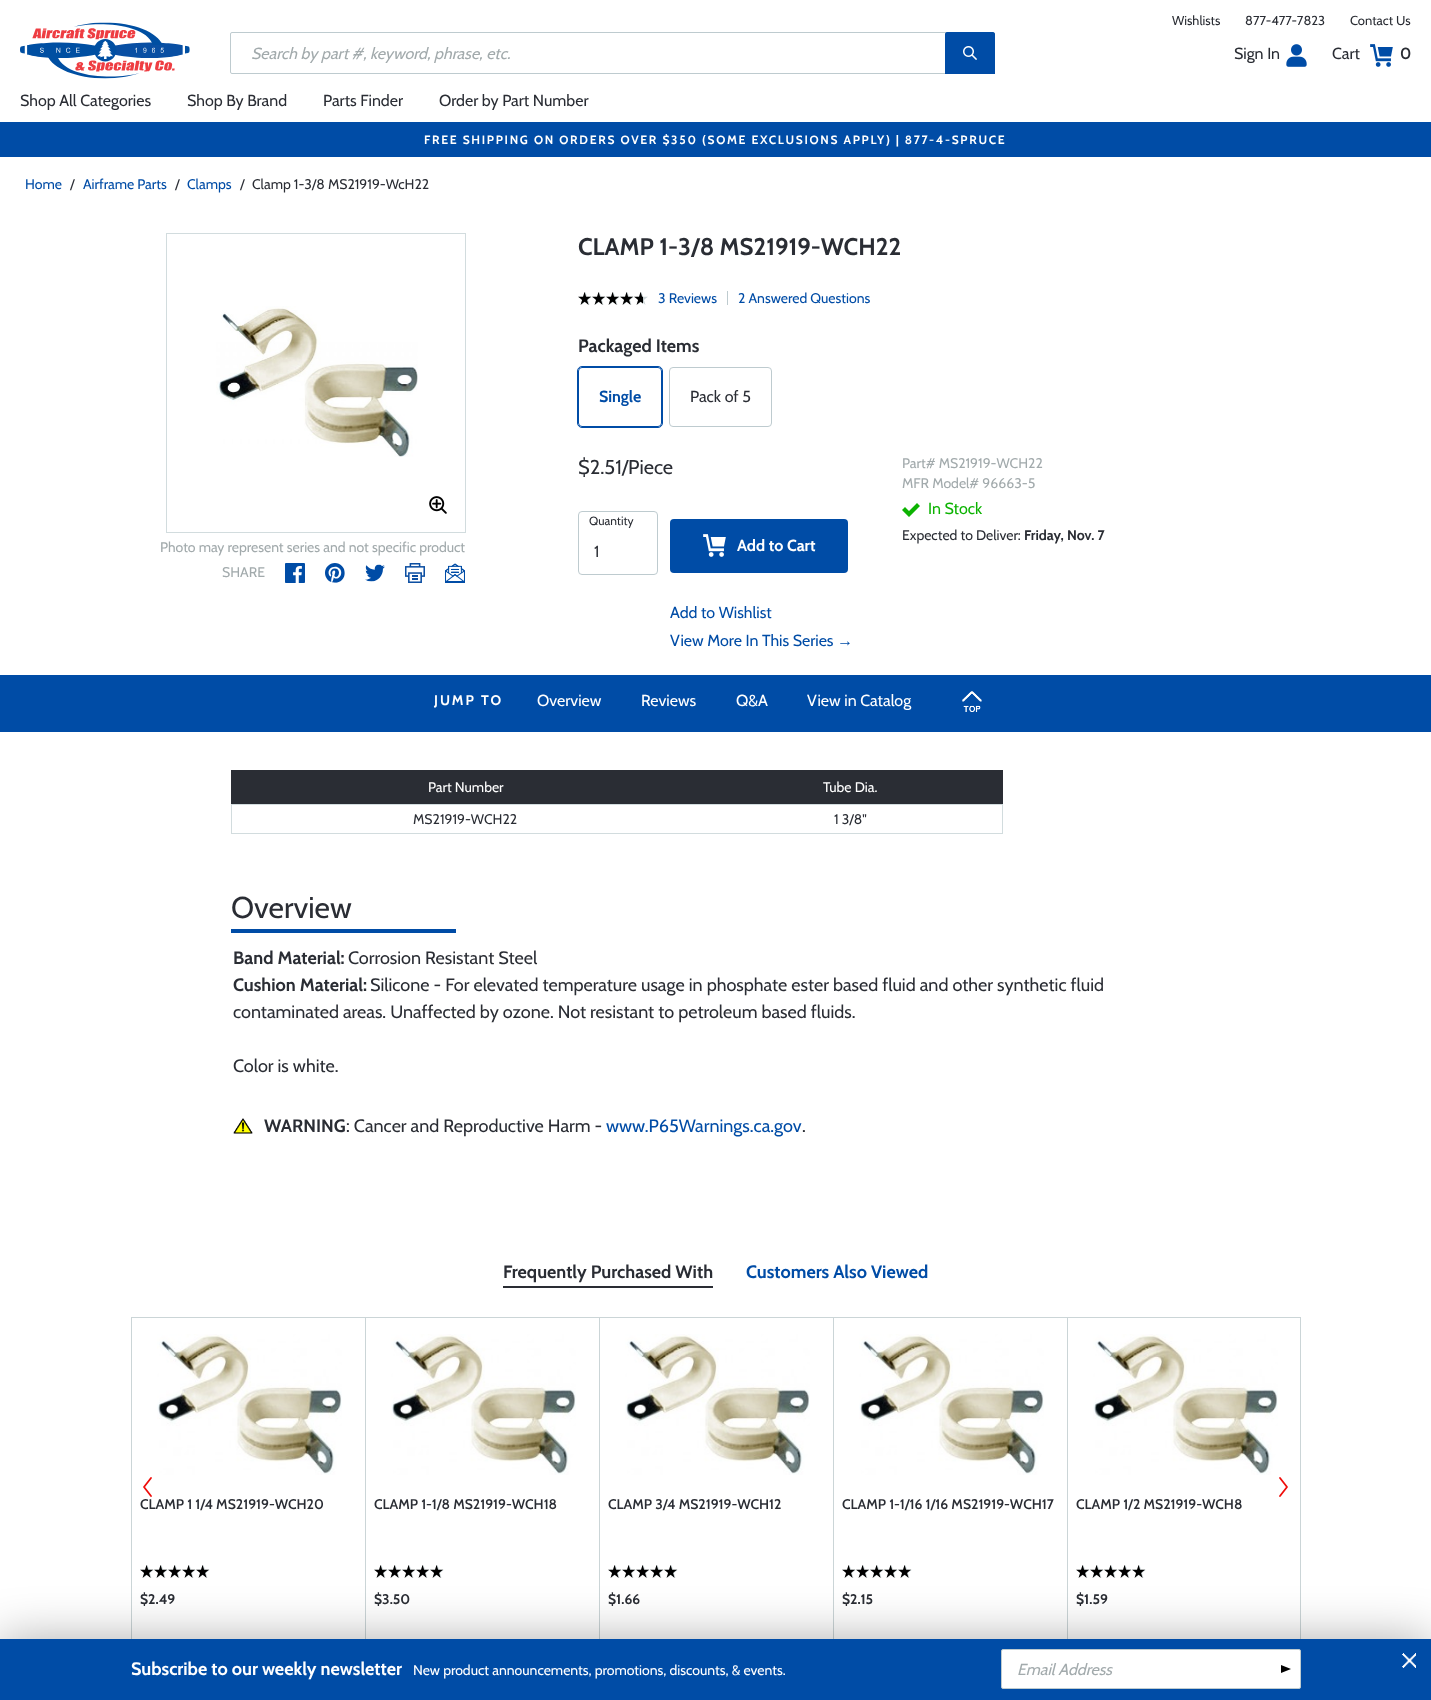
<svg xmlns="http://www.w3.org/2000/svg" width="1431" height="1700">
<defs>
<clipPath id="clip1"><rect x="132" y="1317" width="1168" height="340"/></clipPath>
</defs>
<rect width="100%" height="100%" fill="#fff"/>
<text x="1172" y="25" style="font-family:Cabin;font-size:13px;fill:#2a2d34">Wishlists</text>
<text x="1245" y="25" style="font-family:Cabin;font-size:13px;fill:#2a2d34">877-477-7823</text>
<text x="1350" y="25" style="font-family:Cabin;font-size:13px;fill:#2a2d34">Contact Us</text>
<image x="20" y="22" width="170" height="57" href="media/1.png"/>
<rect x="230.5" y="32.5" width="764" height="41" rx="1.5" fill="none" stroke="#becbcf"/>
<text x="251" y="59" style="font-family:Cabin;font-size:16px;font-style:italic;fill:#a2aaac">Search by part #, keyword, phrase, etc.</text>
<path d="M947 32h46c1 0 2 1 2 2v40h-50v-40c0-1 1-2 2-2z" fill="#004ca6"/>
<image x="963" y="46" width="14" height="14" href="media/2.png"/>
<text x="1234" y="59" style="font-family:Cabin;font-size:16px;fill:#2a2d34">Sign In</text>
<image x="1286" y="44" width="21" height="23" href="media/3.png"/>
<text x="1332" y="59" style="font-family:Cabin;font-size:16px;fill:#2a2d34">Cart</text>
<image x="1370" y="44" width="23" height="23" href="media/4.png"/>
<text x="1400" y="59" style="font-family:Cabin;font-size:16px;font-weight:600;fill:#2a2d34">0</text>
<text x="20" y="106" style="font-family:Cabin;font-size:16px;fill:#2a2d34">Shop All Categories</text>
<text x="187" y="106" style="font-family:Cabin;font-size:16px;fill:#2a2d34">Shop By Brand</text>
<text x="323" y="106" style="font-family:Cabin;font-size:16px;fill:#2a2d34">Parts Finder</text>
<text x="439" y="106" style="font-family:Cabin;font-size:16px;fill:#2a2d34">Order by Part Number</text>
<rect y="122" width="1431" height="35" fill="#004ca6"/>
<text x="424" y="144" style="font-family:Cabin;font-size:12px;font-weight:bold;letter-spacing:1.7px;fill:#fff">FREE SHIPPING ON ORDERS OVER $350 (SOME EXCLUSIONS APPLY) | 877-4-SPRUCE</text>
<text x="25" y="189" style="font-family:Cabin;font-size:14px;fill:#004ca6">Home</text>
<text x="70" y="189" style="font-family:Cabin;font-size:14px;fill:#2a2d34">/</text>
<text x="83" y="189" style="font-family:Cabin;font-size:14px;fill:#004ca6">Airframe Parts</text>
<text x="175" y="189" style="font-family:Cabin;font-size:14px;fill:#2a2d34">/</text>
<text x="187" y="189" style="font-family:Cabin;font-size:14px;fill:#004ca6">Clamps</text>
<text x="240" y="189" style="font-family:Cabin;font-size:14px;fill:#2a2d34">/</text>
<text x="252" y="189" style="font-family:Cabin;font-size:14px;fill:#2a2d34">Clamp 1-3/8 MS21919-WcH22</text>
<rect x="166.5" y="233.5" width="299" height="299" fill="none" stroke="#d2dcde"/>
<image x="216" y="306" width="202" height="151" href="media/5.png"/>
<image x="429" y="496" width="18" height="18" href="media/6.png"/>
<text x="160" y="552" style="font-family:Cabin;font-size:14px;fill:#a2aaac">Photo may represent series and not specific product</text>
<text x="222" y="577" style="font-family:Cabin;font-size:14px;fill:#a2aaac">SHARE</text>
<image x="285" y="563" width="20" height="20" href="media/7.png"/>
<image x="325" y="563" width="20" height="20" href="media/8.png"/>
<image x="365" y="564" width="20" height="18" href="media/9.png"/>
<image x="405" y="563" width="20" height="20" href="media/10.png"/>
<image x="445" y="563" width="20" height="20" href="media/11.png"/>
<text x="578" y="255" style="font-family:Cabin;font-size:24px;font-weight:bold;fill:#2a2d34">CLAMP 1-3/8 MS21919-WCH22</text>
<image x="579" y="292" width="69" height="13" href="media/12.png"/>
<image x="578" y="292" width="65" height="13" href="media/13.png"/>
<rect x="727" y="291" width="1" height="14" fill="#becbcf"/>
<text x="658" y="303" style="font-family:Cabin;font-size:14px;fill:#004ca6">3 Reviews</text>
<text x="738" y="303" style="font-family:Cabin;font-size:14px;fill:#004ca6">2 Answered Questions</text>
<text x="578" y="352" style="font-family:Cabin;font-size:18px;font-weight:bold;fill:#2a2d34">Packaged Items</text>
<rect x="577.5" y="366.5" width="85" height="61" rx="4.5" fill="none" stroke="#004ca6"/>
<rect x="578.5" y="367.5" width="83" height="59" rx="3.5" fill="none" stroke="#004ca6"/>
<text x="599" y="402" style="font-family:Cabin;font-size:16px;font-weight:bold;fill:#004ca6">Single</text>
<rect x="669.5" y="367.5" width="102" height="59" rx="3.5" fill="none" stroke="#becbcf"/>
<text x="690" y="402" style="font-family:Cabin;font-size:16px;fill:#2a2d34">Pack of 5</text>
<text x="578" y="474" style="font-family:Cabin;font-size:20px;fill:#2a2d34">$2.51/Piece</text>
<rect x="578.5" y="511.5" width="79" height="63" rx="3.5" fill="none" stroke="#becbcf"/>
<text x="589" y="525" style="font-family:Cabin;font-size:12px;fill:#2a2d34">Quantity</text>
<text x="594" y="557" style="font-family:Cabin;font-size:16px;fill:#2a2d34">1</text>
<rect x="670" y="519" width="178" height="54" rx="4" fill="#004ca6"/>
<image x="703" y="534" width="23" height="23" href="media/14.png"/>
<text x="737" y="551" style="font-family:Cabin;font-size:16px;font-weight:bold;fill:#fff">Add to Cart</text>
<text x="670" y="618" style="font-family:Cabin;font-size:16px;fill:#004ca6">Add to Wishlist</text>
<text x="670" y="646" style="font-family:Cabin;font-size:16px;fill:#004ca6">View More In This Series</text>
<text x="837" y="646" style="font-family:Liberation Sans;font-size:16px;fill:#004ca6">→</text>
<text x="902" y="468" style="font-family:Cabin;font-size:14px;fill:#a2aaac">Part# MS21919-WCH22</text>
<text x="902" y="488" style="font-family:Cabin;font-size:14px;fill:#a2aaac">MFR Model# 96663-5</text>
<path d="M917 503l-8 8l-4-4l-3 3l7 7l11-11z" fill="#0cb302" fill-rule="evenodd"/>
<text x="928" y="514" style="font-family:Cabin;font-size:16px;fill:#0cb302">In Stock</text>
<text x="902" y="540" style="font-family:Cabin;font-size:14px;fill:#2a2d34">Expected to Deliver:</text>
<text x="1024" y="540" style="font-family:Cabin;font-size:14px;font-weight:bold;fill:#2a2d34">Friday, Nov. 7</text>
<rect y="675" width="1431" height="57" fill="#004ca6"/>
<text x="434" y="705" style="font-family:Cabin;font-size:14px;font-weight:bold;letter-spacing:2px;fill:#fff">JUMP TO</text>
<text x="537" y="706" style="font-family:Cabin;font-size:16px;fill:#fff">Overview</text>
<text x="641" y="706" style="font-family:Cabin;font-size:16px;fill:#fff">Reviews</text>
<text x="736" y="706" style="font-family:Cabin;font-size:16px;fill:#fff">Q&amp;A</text>
<text x="807" y="706" style="font-family:Cabin;font-size:16px;fill:#fff">View in Catalog</text>
<image x="962" y="691" width="20" height="21" href="media/15.png"/>
<rect x="231" y="770" width="772" height="34" fill="#2a2d34"/>
<text x="428" y="792" style="font-family:Cabin;font-size:14px;fill:#fff">Part Number</text>
<text x="823" y="792" style="font-family:Cabin;font-size:14px;fill:#fff">Tube Dia.</text>
<rect x="231" y="804" width="772" height="1" fill="#d2dcde"/>
<rect x="231" y="833" width="468" height="1" fill="#d2dcde"/>
<rect x="231" y="804" width="1" height="30" fill="#d2dcde"/>
<text x="413" y="824" style="font-family:Cabin;font-size:14px;fill:#2a2d34">MS21919-WCH22</text>
<rect x="1002" y="804" width="1" height="30" fill="#d2dcde"/>
<rect x="699" y="833" width="304" height="1" fill="#d2dcde"/>
<text x="834" y="824" style="font-family:Cabin;font-size:14px;fill:#2a2d34">1 3/8"</text>
<rect x="231" y="929" width="225" height="4" fill="#004ca6"/>
<text x="231" y="918" style="font-family:Cabin;font-size:30px;fill:#2a2d34">Overview</text>
<text x="233" y="964" style="font-family:Cabin;font-size:18px;font-weight:bold;fill:#2a2d34">Band Material:</text>
<text x="348" y="964" style="font-family:Cabin;font-size:18px;fill:#2a2d34">Corrosion Resistant Steel</text>
<text x="233" y="991" style="font-family:Cabin;font-size:18px;font-weight:bold;fill:#2a2d34">Cushion Material:</text>
<text x="370" y="991" style="font-family:Cabin;font-size:18px;fill:#2a2d34">Silicone - For elevated temperature usage in phosphate ester based fluid and other synthetic fluid</text>
<text x="233" y="1018" style="font-family:Cabin;font-size:18px;fill:#2a2d34">contaminated areas. Unaffected by ozone. Not resistant to petroleum based fluids.</text>
<text x="233" y="1072" style="font-family:Cabin;font-size:18px;fill:#2a2d34">Color is white.</text>
<image x="233" y="1118" width="20" height="16" href="media/16.png"/>
<text x="264" y="1132" style="font-family:Cabin;font-size:18px;font-weight:bold;fill:#2a2d34">WARNING</text>
<text x="346" y="1132" style="font-family:Cabin;font-size:18px;fill:#2a2d34">: Cancer and Reproductive Harm -</text>
<text x="606" y="1132" style="font-family:Cabin;font-size:18px;fill:#004ca6">www.P65Warnings.ca.gov</text>
<text x="802" y="1132" style="font-family:Cabin;font-size:18px;fill:#2a2d34">.</text>
<text x="503" y="1278" style="font-family:Cabin;font-size:18px;font-weight:bold;fill:#2a2d34">Frequently Purchased With</text>
<rect x="503" y="1286" width="210" height="2" fill="#2a2d34"/>
<text x="746" y="1278" style="font-family:Cabin;font-size:18px;font-weight:bold;fill:#004ca6">Customers Also Viewed</text>
<rect x="131" y="1317" width="1" height="322" fill="#cbd5d7"/>
<g clip-path="url(#clip1)">
<rect x="131.5" y="1317.5" width="234" height="339" fill="none" stroke="#cbd5d7"/>
</g>
<path d="M151 1496l-7-9l7-9" fill="none" stroke="#ef0d0a" stroke-width="1.8" stroke-linecap="round" stroke-linejoin="round"/>
<rect x="1300" y="1317" width="1" height="322" fill="#cbd5d7"/>
<rect x="365.5" y="1317.5" width="234" height="339" fill="none" stroke="#cbd5d7"/>
<rect x="599.5" y="1317.5" width="234" height="339" fill="none" stroke="#cbd5d7"/>
<rect x="833.5" y="1317.5" width="234" height="339" fill="none" stroke="#cbd5d7"/>
<g clip-path="url(#clip1)">
<rect x="1067.5" y="1317.5" width="234" height="339" fill="none" stroke="#cbd5d7"/>
</g>
<path d="M1280 1496l7-9l-7-9" fill="none" stroke="#ef0d0a" stroke-width="1.8" stroke-linecap="round" stroke-linejoin="round"/>
<image x="157" y="1334" width="185" height="141" href="media/17.png"/>
<text x="140" y="1509" style="font-family:Cabin;font-size:14px;font-weight:600;fill:#2a2d34">CLAMP 1 1/4 MS21919-WCH20</text>
<image x="141" y="1565" width="69" height="13" href="media/12.png"/>
<image x="140" y="1565" width="69" height="13" href="media/18.png"/>
<text x="140" y="1604" style="font-family:Cabin;font-size:14px;font-weight:bold;fill:#2a2d34">$2.49</text>
<image x="391" y="1334" width="185" height="141" href="media/17.png"/>
<text x="374" y="1509" style="font-family:Cabin;font-size:14px;font-weight:600;fill:#2a2d34">CLAMP 1-1/8 MS21919-WCH18</text>
<image x="375" y="1565" width="69" height="13" href="media/12.png"/>
<image x="374" y="1565" width="69" height="13" href="media/18.png"/>
<text x="374" y="1604" style="font-family:Cabin;font-size:14px;font-weight:bold;fill:#2a2d34">$3.50</text>
<image x="625" y="1334" width="185" height="141" href="media/17.png"/>
<text x="608" y="1509" style="font-family:Cabin;font-size:14px;font-weight:600;fill:#2a2d34">CLAMP 3/4 MS21919-WCH12</text>
<image x="609" y="1565" width="69" height="13" href="media/12.png"/>
<image x="608" y="1565" width="69" height="13" href="media/18.png"/>
<text x="608" y="1604" style="font-family:Cabin;font-size:14px;font-weight:bold;fill:#2a2d34">$1.66</text>
<image x="859" y="1334" width="185" height="141" href="media/17.png"/>
<text x="842" y="1509" style="font-family:Cabin;font-size:14px;font-weight:600;fill:#2a2d34">CLAMP 1-1/16 1/16 MS21919-WCH17</text>
<image x="843" y="1565" width="69" height="13" href="media/12.png"/>
<image x="842" y="1565" width="69" height="13" href="media/18.png"/>
<text x="842" y="1604" style="font-family:Cabin;font-size:14px;font-weight:bold;fill:#2a2d34">$2.15</text>
<image x="1093" y="1334" width="185" height="141" href="media/17.png"/>
<text x="1076" y="1509" style="font-family:Cabin;font-size:14px;font-weight:600;fill:#2a2d34">CLAMP 1/2 MS21919-WCH8</text>
<image x="1077" y="1565" width="69" height="13" href="media/12.png"/>
<image x="1076" y="1565" width="69" height="13" href="media/18.png"/>
<text x="1076" y="1604" style="font-family:Cabin;font-size:14px;font-weight:bold;fill:#2a2d34">$1.59</text>
<rect y="1641" width="1431" height="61" fill="#00000057" filter="blur(25px)"/>
<rect y="1639" width="1431" height="61" fill="#004ca6"/>
<text x="131" y="1675" style="font-family:Cabin;font-size:18px;font-weight:bold;fill:#fff">Subscribe to our weekly newsletter</text>
<text x="413" y="1675" style="font-family:Cabin;font-size:14px;fill:#fff">New product announcements, promotions, discounts, &amp; events.</text>
<rect x="1001.5" y="1649.5" width="299" height="39" rx="1.5" fill="#fff" stroke="#becbcf"/>
<text x="1017" y="1675" style="font-family:Cabin;font-size:16px;font-style:italic;fill:#a2aaac">Email Address</text>
<path d="M1281 1673v-8l10 4z" fill="#000"/>
<image x="1402" y="1653" width="14" height="15" href="media/19.png"/>
</svg>
